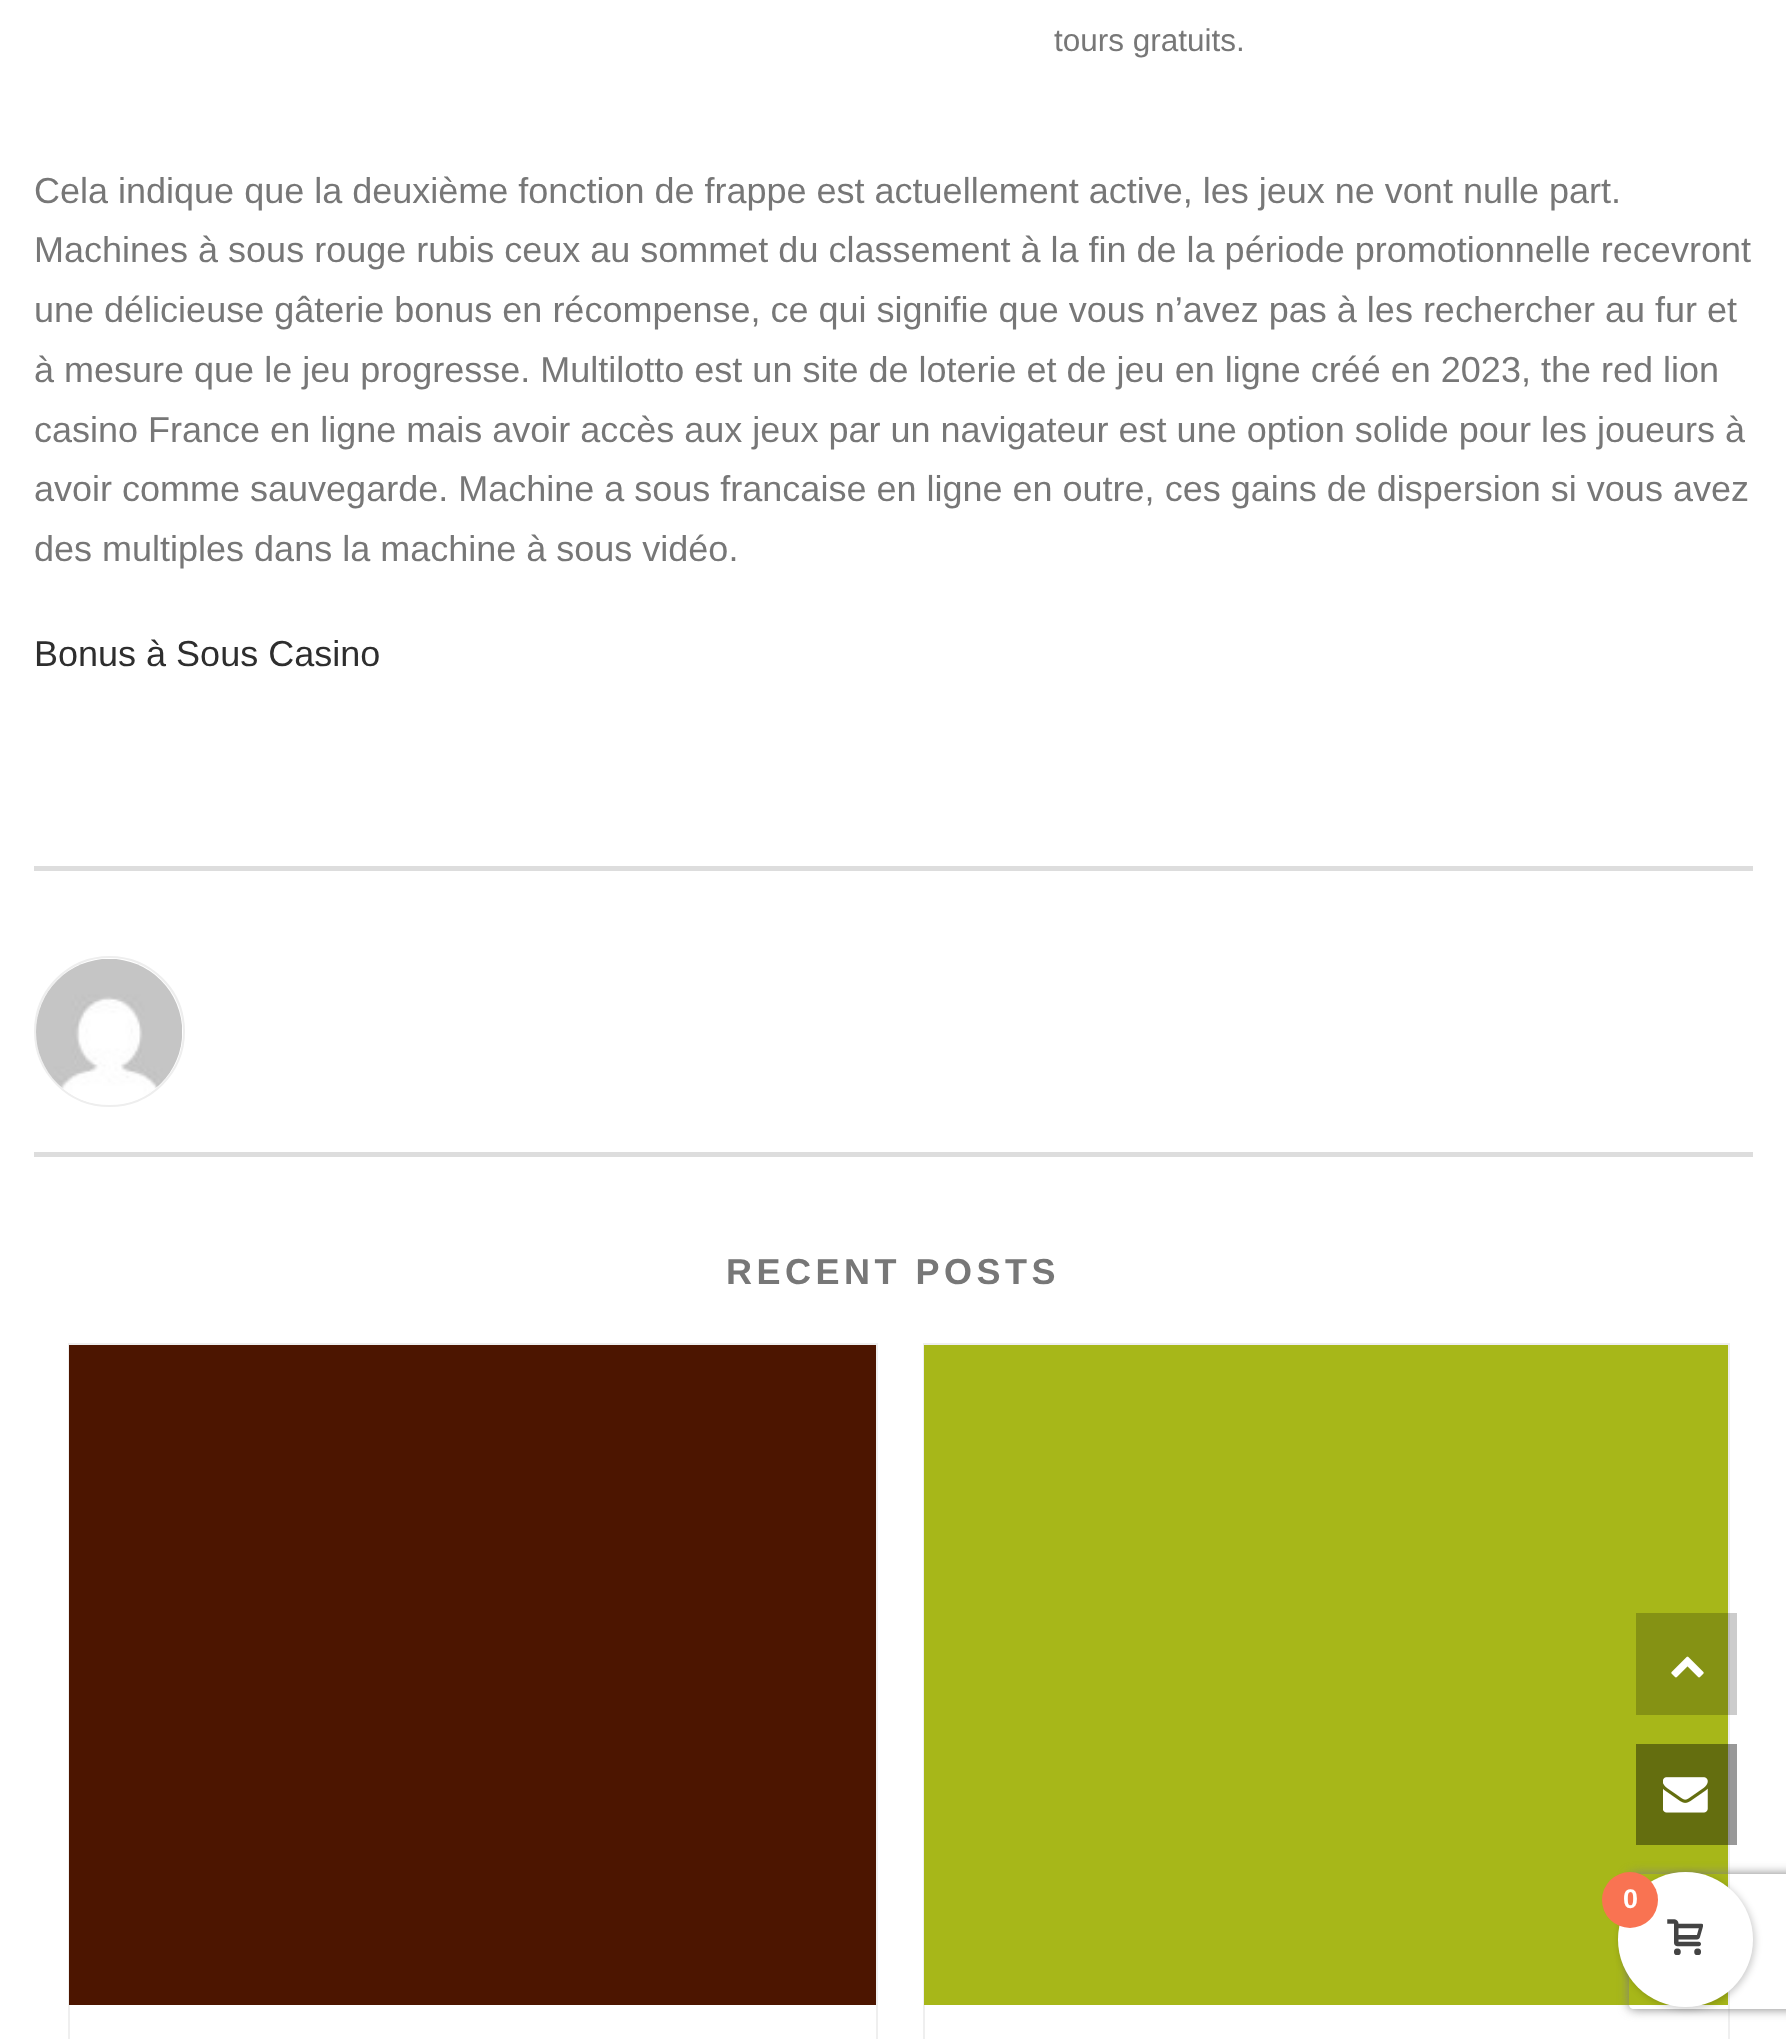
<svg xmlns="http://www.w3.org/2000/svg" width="1786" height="2039">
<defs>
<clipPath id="clip1"><path d="M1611 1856h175v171h-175zm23 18h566c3 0 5 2 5 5v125c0 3-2 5-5 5h-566c-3 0-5-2-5-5v-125c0-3 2-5 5-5z" clip-rule="evenodd"/></clipPath>
</defs>
<rect width="100%" height="100%" fill="#fff"/>
<text x="1054" y="51" style="font-family:Liberation Sans;font-size:31.5px;fill:#777">tours gratuits.</text>
<text x="34" y="203" style="font-family:Liberation Sans;font-size:36px;fill:#777">Cela indique que la deuxième fonction de frappe est actuellement active, les jeux ne vont nulle part.</text>
<text x="34" y="262" style="font-family:Liberation Sans;font-size:36px;fill:#777">Machines à sous rouge rubis ceux au sommet du classement à la fin de la période promotionnelle recevront</text>
<text x="34" y="322" style="font-family:Liberation Sans;font-size:36px;fill:#777">une délicieuse gâterie bonus en récompense, ce qui signifie que vous n’avez pas à les rechercher au fur et</text>
<text x="34" y="382" style="font-family:Liberation Sans;font-size:36px;fill:#777">à mesure que le jeu progresse. Multilotto est un site de loterie et de jeu en ligne créé en 2023, the red lion</text>
<text x="34" y="442" style="font-family:Liberation Sans;font-size:36px;fill:#777">casino France en ligne mais avoir accès aux jeux par un navigateur est une option solide pour les joueurs à</text>
<text x="34" y="501" style="font-family:Liberation Sans;font-size:36px;fill:#777">avoir comme sauvegarde. Machine a sous francaise en ligne en outre, ces gains de dispersion si vous avez</text>
<text x="34" y="561" style="font-family:Liberation Sans;font-size:36px;fill:#777">des multiples dans la machine à sous vidéo.</text>
<text x="34" y="666" style="font-family:Liberation Sans;font-size:36px;fill:#2e2e2e">Bonus à Sous Casino</text>
<rect x="34" y="866" width="1719" height="5" fill="#ddd"/>
<rect x="34" y="1152" width="1719" height="5" fill="#ddd"/>
<circle cx="109.5" cy="1031.5" r="74.5" fill="none" stroke="#eee" stroke-width="2"/>
<image x="36" y="959" width="146" height="144" href="media/1.png"/>
<text x="726" y="1284" style="font-family:Liberation Sans;font-size:36px;font-weight:bold;letter-spacing:4.5px;fill:#777">RECENT POSTS</text>
<rect x="69" y="1344" width="808" height="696" fill="none" stroke="#efefef" stroke-width="2"/>
<rect x="69" y="1345" width="807" height="660" fill="#4c1500"/>
<rect x="924" y="1344" width="805" height="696" fill="none" stroke="#efefef" stroke-width="2"/>
<rect x="924" y="1345" width="804" height="660" fill="#a7b719"/>
<g clip-path="url(#clip1)">
<rect x="1629" y="1874" width="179" height="135" rx="5" fill="#808080" filter="blur(5.5px)"/>
</g>
<rect x="1636" y="1613" width="101" height="102" fill="#00000033"/>
<image x="1671" y="1656" width="33" height="22" href="media/2.png"/>
<rect x="1636" y="1744" width="101" height="101" fill="#00000066"/>
<image x="1663" y="1777" width="45" height="36" href="media/3.png"/>
<rect x="1620" y="1874" width="135" height="135" rx="67.5" fill="#00000033" filter="blur(3.5px)"/>
<circle cx="1685.5" cy="1939.5" r="67.5" fill="#fff"/>
<circle cx="1630" cy="1900" r="28" fill="#f97352"/>
<text x="1623" y="1908" style="font-family:Liberation Sans;font-size:27px;font-weight:bold;fill:#fff">0</text>
<image x="1667" y="1919" width="36" height="36" href="media/4.png"/>
</svg>
